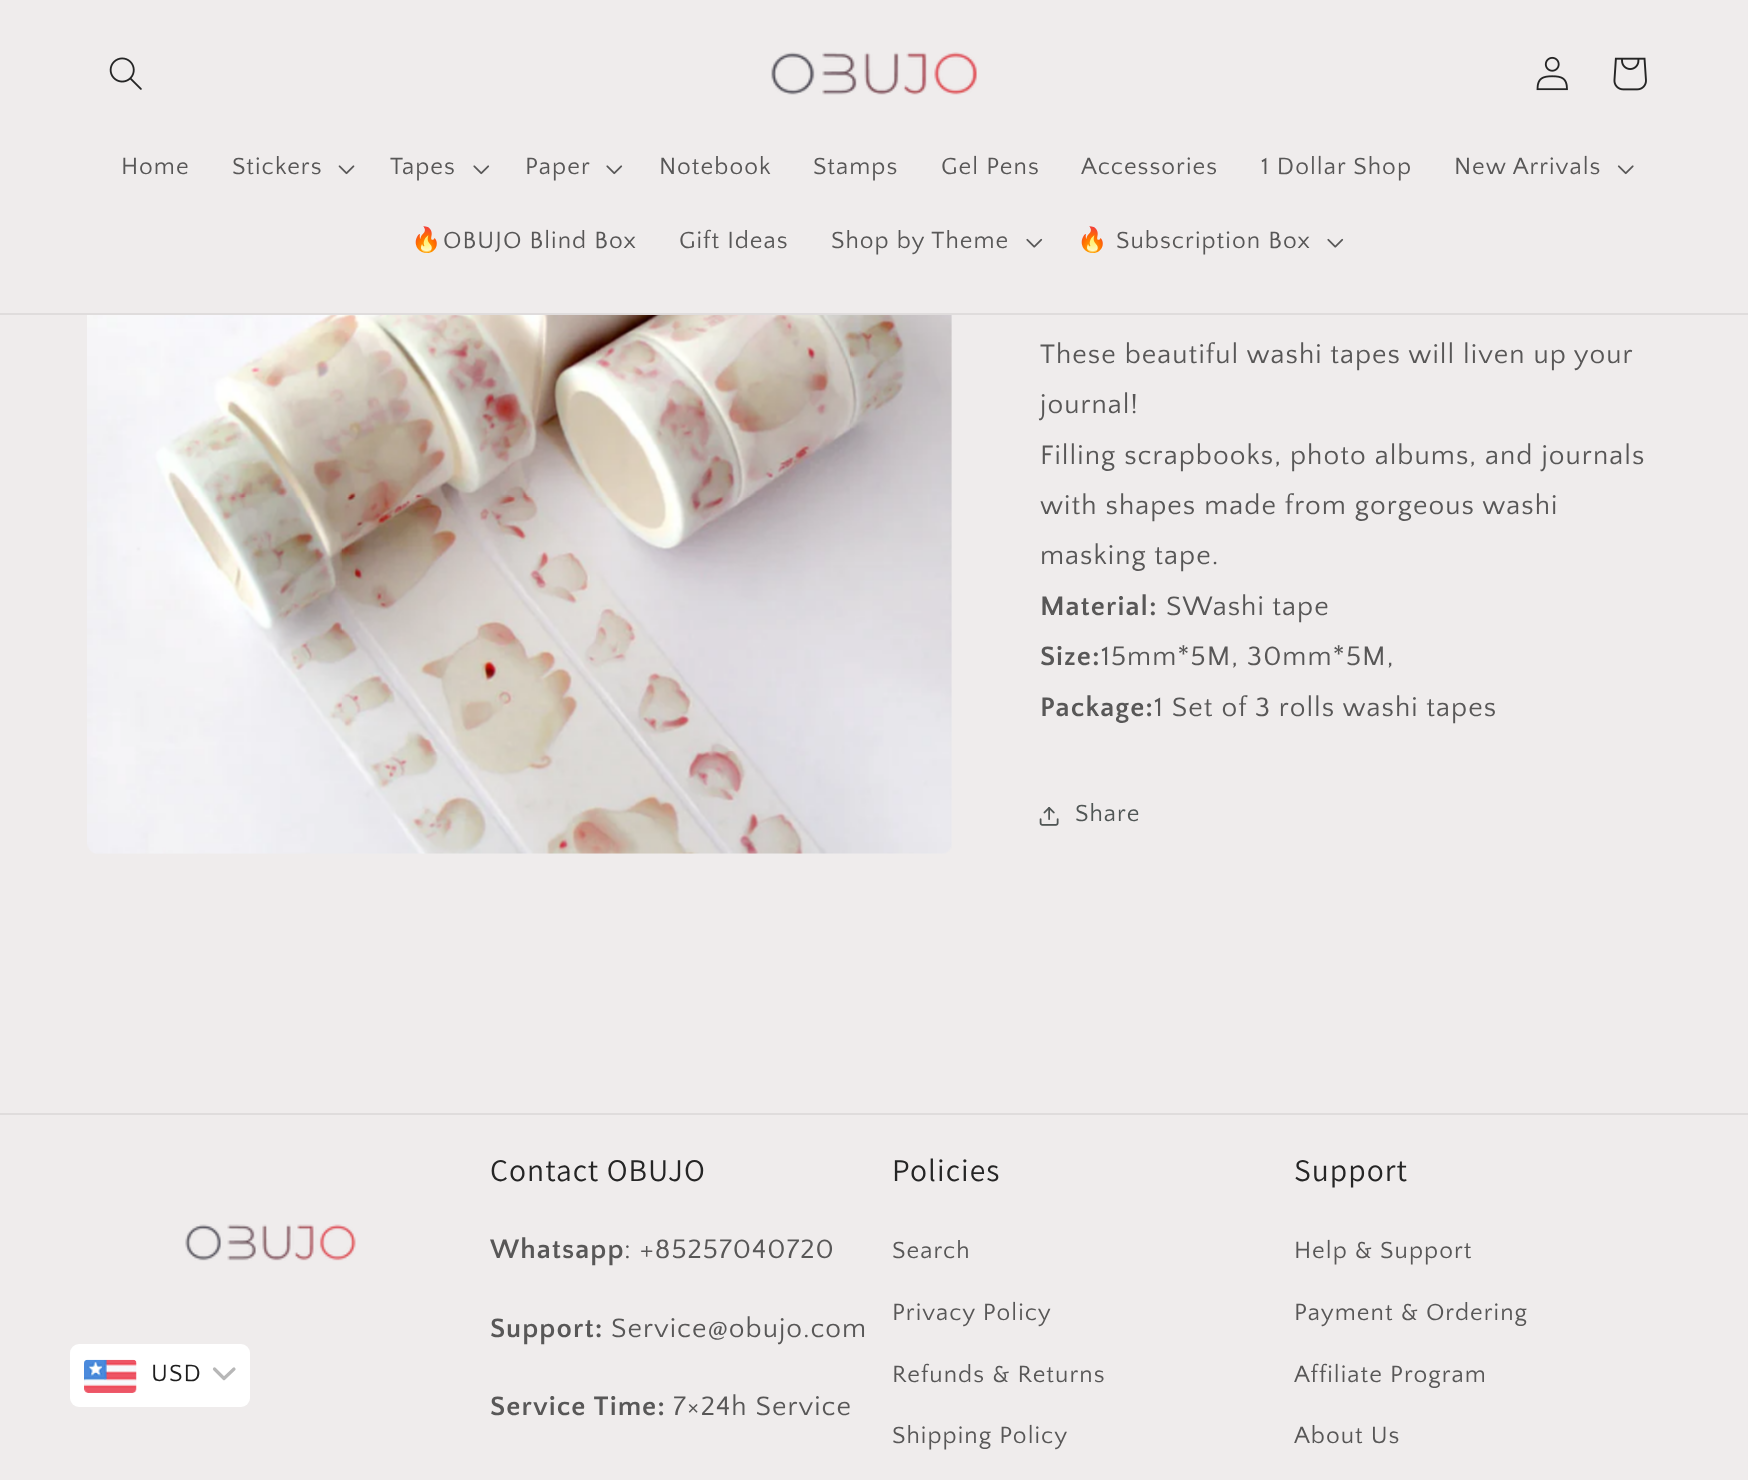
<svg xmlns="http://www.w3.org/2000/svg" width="1748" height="1480">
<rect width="100%" height="100%" fill="#efecec"/>
<rect y="313" width="1748" height="2" fill="#dfdcdc"/>
<image x="109" y="57" width="33" height="33" href="media/1.png"/>
<image x="771" y="52" width="206" height="43" href="media/2.png"/>
<image x="1536" y="56" width="32" height="35" href="media/3.png"/>
<image x="1613" y="57" width="34" height="34" href="media/4.png"/>
<text x="121" y="174" style="font-family:Quattrocento Sans;font-size:24.5px;letter-spacing:1.05px;fill:#585757">Home</text>
<text x="232" y="174" style="font-family:Quattrocento Sans;font-size:24.5px;letter-spacing:1.05px;fill:#585757">Stickers</text>
<image x="338" y="165" width="17" height="10" href="media/5.png"/>
<text x="390" y="174" style="font-family:Quattrocento Sans;font-size:24.5px;letter-spacing:1.05px;fill:#585757">Tapes</text>
<image x="473" y="165" width="17" height="10" href="media/6.png"/>
<text x="525" y="174" style="font-family:Quattrocento Sans;font-size:24.5px;letter-spacing:1.05px;fill:#585757">Paper</text>
<image x="606" y="165" width="17" height="10" href="media/6.png"/>
<text x="659" y="174" style="font-family:Quattrocento Sans;font-size:24.5px;letter-spacing:1.05px;fill:#585757">Notebook</text>
<text x="813" y="174" style="font-family:Quattrocento Sans;font-size:24.5px;letter-spacing:1.05px;fill:#585757">Stamps</text>
<text x="941" y="174" style="font-family:Quattrocento Sans;font-size:24.5px;letter-spacing:1.05px;fill:#585757">Gel Pens</text>
<text x="1081" y="174" style="font-family:Quattrocento Sans;font-size:24.5px;letter-spacing:1.05px;fill:#585757">Accessories</text>
<text x="1261" y="174" style="font-family:Quattrocento Sans;font-size:24.5px;letter-spacing:1.05px;fill:#585757">1 Dollar Shop</text>
<text x="1454" y="174" style="font-family:Quattrocento Sans;font-size:24.5px;letter-spacing:1.05px;fill:#585757">New Arrivals</text>
<image x="1617" y="165" width="17" height="10" href="media/7.png"/>
<text x="411" y="248" style="font-family:Noto Color Emoji;font-size:24.5px;letter-spacing:1.05px;fill:#585757">🔥</text>
<text x="443" y="248" style="font-family:Quattrocento Sans;font-size:24.5px;letter-spacing:1.05px;fill:#585757">OBUJO Blind Box</text>
<text x="679" y="248" style="font-family:Quattrocento Sans;font-size:24.5px;letter-spacing:1.05px;fill:#585757">Gift Ideas</text>
<text x="831" y="248" style="font-family:Quattrocento Sans;font-size:24.5px;letter-spacing:1.05px;fill:#585757">Shop by Theme</text>
<image x="1026" y="238" width="17" height="10" href="media/8.png"/>
<text x="1077" y="248" style="font-family:Noto Color Emoji;font-size:24.5px;letter-spacing:1.05px;fill:#585757">🔥</text>
<text x="1116" y="248" style="font-family:Quattrocento Sans;font-size:24.5px;letter-spacing:1.05px;fill:#585757">Subscription Box</text>
<image x="1327" y="238" width="17" height="10" href="media/8.png"/>
<image x="87" y="315" width="865" height="539" href="media/9.png"/>
<text x="1040" y="363" style="font-family:Quattrocento Sans;font-size:28px;letter-spacing:1.05px;fill:#585757">These beautiful washi tapes will liven up your</text>
<text x="1040" y="413" style="font-family:Quattrocento Sans;font-size:28px;letter-spacing:1.05px;fill:#585757">journal!</text>
<text x="1040" y="464" style="font-family:Quattrocento Sans;font-size:28px;letter-spacing:1.05px;fill:#585757">Filling scrapbooks, photo albums, and journals</text>
<text x="1040" y="514" style="font-family:Quattrocento Sans;font-size:28px;letter-spacing:1.05px;fill:#585757">with shapes made from gorgeous washi</text>
<text x="1040" y="564" style="font-family:Quattrocento Sans;font-size:28px;letter-spacing:1.05px;fill:#585757">masking tape.</text>
<text x="1040" y="615" style="font-family:Quattrocento Sans;font-size:28px;font-weight:bold;letter-spacing:1.05px;fill:#585757">Material:</text>
<text x="1166" y="615" style="font-family:Quattrocento Sans;font-size:28px;letter-spacing:1.05px;fill:#585757">SWashi tape</text>
<text x="1040" y="665" style="font-family:Quattrocento Sans;font-size:28px;font-weight:bold;letter-spacing:1.05px;fill:#585757">Size:</text>
<text x="1101" y="665" style="font-family:Quattrocento Sans;font-size:28px;letter-spacing:1.05px;fill:#585757">15mm*5M, 30mm*5M,</text>
<text x="1040" y="716" style="font-family:Quattrocento Sans;font-size:28px;font-weight:bold;letter-spacing:1.05px;fill:#585757">Package:</text>
<text x="1154" y="716" style="font-family:Quattrocento Sans;font-size:28px;letter-spacing:1.05px;fill:#585757">1 Set of 3 rolls washi tapes</text>
<image x="1039" y="807" width="20" height="19" href="media/10.png"/>
<text x="1075" y="821" style="font-family:Quattrocento Sans;font-size:24.5px;letter-spacing:1.05px;fill:#505655">Share</text>
<rect x="70" y="1344" width="180" height="63" rx="9" fill="#fff"/>
<image x="84" y="1359" width="53" height="34" href="media/11.png"/>
<text x="151" y="1381" style="font-family:Quattrocento Sans;font-size:24.5px;letter-spacing:1.05px;fill:#1e1e1e">USD</text>
<path d="M214.5 1369l9.5 9.5l10-9.5" fill="none" stroke="#b7b7b7" stroke-width="3.2" stroke-linecap="round" stroke-linejoin="round"/>
<rect y="1113" width="1748" height="2" fill="#dfdcdc"/>
<image x="185" y="1224" width="171" height="37" href="media/12.png"/>
<text x="490" y="1181" style="font-family:Assistant;font-size:31.5px;letter-spacing:1.05px;fill:#252525">Contact OBUJO</text>
<text x="490" y="1258" style="font-family:Quattrocento Sans;font-size:28px;font-weight:bold;letter-spacing:1.05px;fill:#585757">Whatsapp</text>
<text x="624" y="1258" style="font-family:Quattrocento Sans;font-size:28px;letter-spacing:1.05px;fill:#585757">: +85257040720</text>
<text x="490" y="1337" style="font-family:Quattrocento Sans;font-size:28px;font-weight:bold;letter-spacing:1.05px;fill:#585757">Support:</text>
<text x="611" y="1337" style="font-family:Quattrocento Sans;font-size:28px;letter-spacing:1.05px;fill:#585757">Service@obujo.com</text>
<text x="490" y="1415" style="font-family:Quattrocento Sans;font-size:28px;font-weight:bold;letter-spacing:1.05px;fill:#585757">Service Time:</text>
<text x="673" y="1415" style="font-family:Quattrocento Sans;font-size:28px;letter-spacing:1.05px;fill:#585757">7×24h Service</text>
<text x="892" y="1181" style="font-family:Assistant;font-size:31.5px;letter-spacing:1.05px;fill:#252525">Policies</text>
<text x="892" y="1258" style="font-family:Quattrocento Sans;font-size:24.5px;letter-spacing:1.05px;fill:#585757">Search</text>
<text x="892" y="1320" style="font-family:Quattrocento Sans;font-size:24.5px;letter-spacing:1.05px;fill:#585757">Privacy Policy</text>
<text x="892" y="1382" style="font-family:Quattrocento Sans;font-size:24.5px;letter-spacing:1.05px;fill:#585757">Refunds &amp; Returns</text>
<text x="892" y="1443" style="font-family:Quattrocento Sans;font-size:24.5px;letter-spacing:1.05px;fill:#585757">Shipping Policy</text>
<text x="1294" y="1181" style="font-family:Assistant;font-size:31.5px;letter-spacing:1.05px;fill:#252525">Support</text>
<text x="1294" y="1258" style="font-family:Quattrocento Sans;font-size:24.5px;letter-spacing:1.05px;fill:#585757">Help &amp; Support</text>
<text x="1294" y="1320" style="font-family:Quattrocento Sans;font-size:24.5px;letter-spacing:1.05px;fill:#585757">Payment &amp; Ordering</text>
<text x="1294" y="1382" style="font-family:Quattrocento Sans;font-size:24.5px;letter-spacing:1.05px;fill:#585757">Affiliate Program</text>
<text x="1294" y="1443" style="font-family:Quattrocento Sans;font-size:24.5px;letter-spacing:1.05px;fill:#585757">About Us</text>
</svg>
